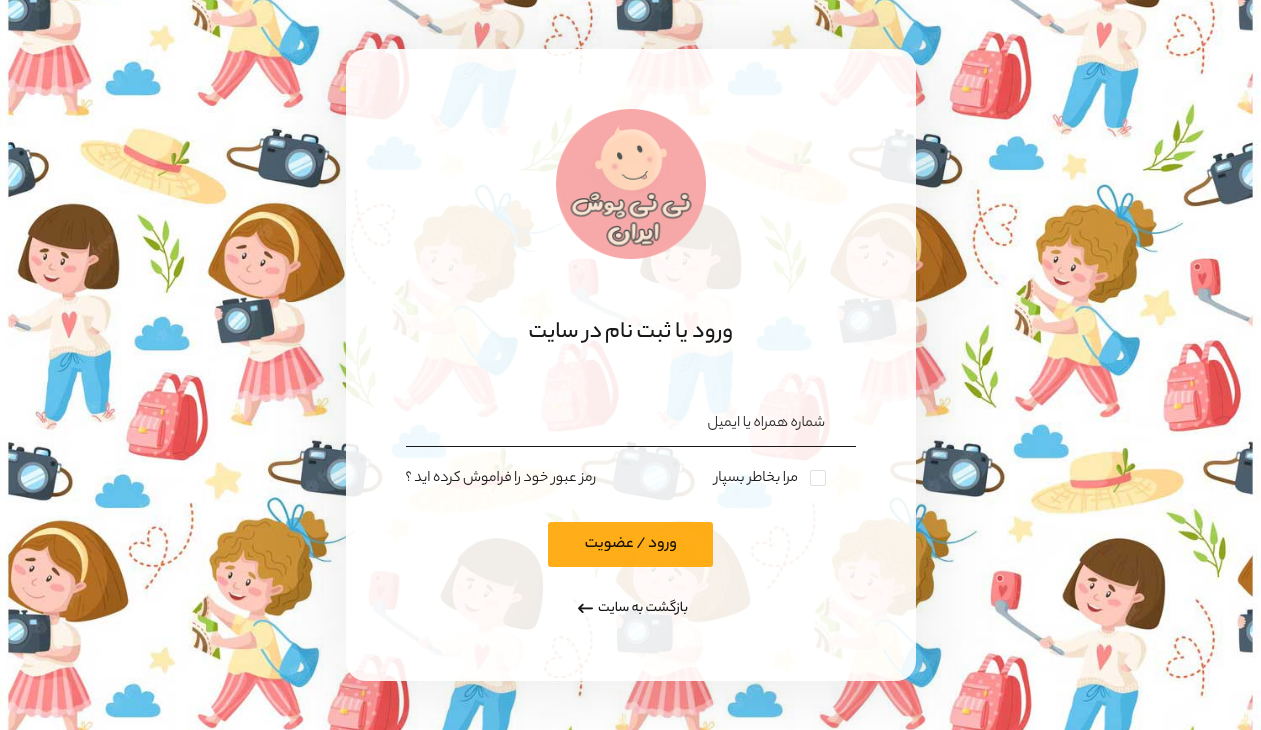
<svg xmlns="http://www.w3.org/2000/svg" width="1261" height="730">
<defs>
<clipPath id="clip1"><path d="M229 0h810v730h-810zm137 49h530c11 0 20 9 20 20v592c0 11-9 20-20 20h-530c-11 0-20-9-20-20v-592c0-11 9-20 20-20z" clip-rule="evenodd"/></clipPath>
</defs>
<rect width="100%" height="100%" fill="#fff"/>
<image x="0" y="0" width="1261" height="730" href="media/1.png"/>
<g clip-path="url(#clip1)">
<rect x="349" y="49" width="570" height="632" rx="20" fill="#00000017" filter="blur(39.5px)"/>
</g>
<rect x="346" y="49" width="570" height="632" rx="20" fill="#ffffffe6"/>
<image x="556" y="109" width="150" height="150" href="media/2.png"/>
<text x="733" y="337" style="font-family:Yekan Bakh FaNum;font-size:24px;font-weight:500;direction:rtl;fill:#191919">ورود</text>
<text x="688" y="337" style="font-family:Yekan Bakh FaNum;font-size:24px;font-weight:500;direction:rtl;fill:#191919">یا ثبت نام</text>
<text x="602" y="337" style="font-family:Yekan Bakh FaNum;font-size:24px;font-weight:500;direction:rtl;fill:#191919">در سایت</text>
<rect x="406" y="446" width="450" height="1" fill="#000000e6"/>
<text x="825" y="426" style="font-family:Yekan Bakh FaNum;font-size:16px;direction:rtl;fill:#302f2f">شماره همراه یا ایمیل</text>
<rect x="810.5" y="470.5" width="15" height="15" rx="1.5" fill="none" stroke="#dfdfdf"/>
<text x="798" y="481" style="font-family:Yekan Bakh FaNum;font-size:16px;direction:rtl;fill:#191919">مرا بخاطر بسپار</text>
<text x="596" y="481" style="font-family:Yekan Bakh FaNum;font-size:16px;direction:rtl;fill:#191919">رمز عبور خود را فراموش کرده اید ؟</text>
<rect x="548" y="522" width="165" height="45" rx="3" fill="#ffa500e6"/>
<text x="677" y="547" style="font-family:Yekan Bakh FaNum;font-size:17px;font-weight:500;direction:rtl;fill:#191102">ورود / عضویت</text>
<text x="688" y="611" style="font-family:Yekan Bakh FaNum;font-size:15px;font-weight:500;direction:rtl;fill:#191919">بازگشت به سایت</text>
<image x="578" y="603" width="15" height="10" href="media/3.png"/>
</svg>
